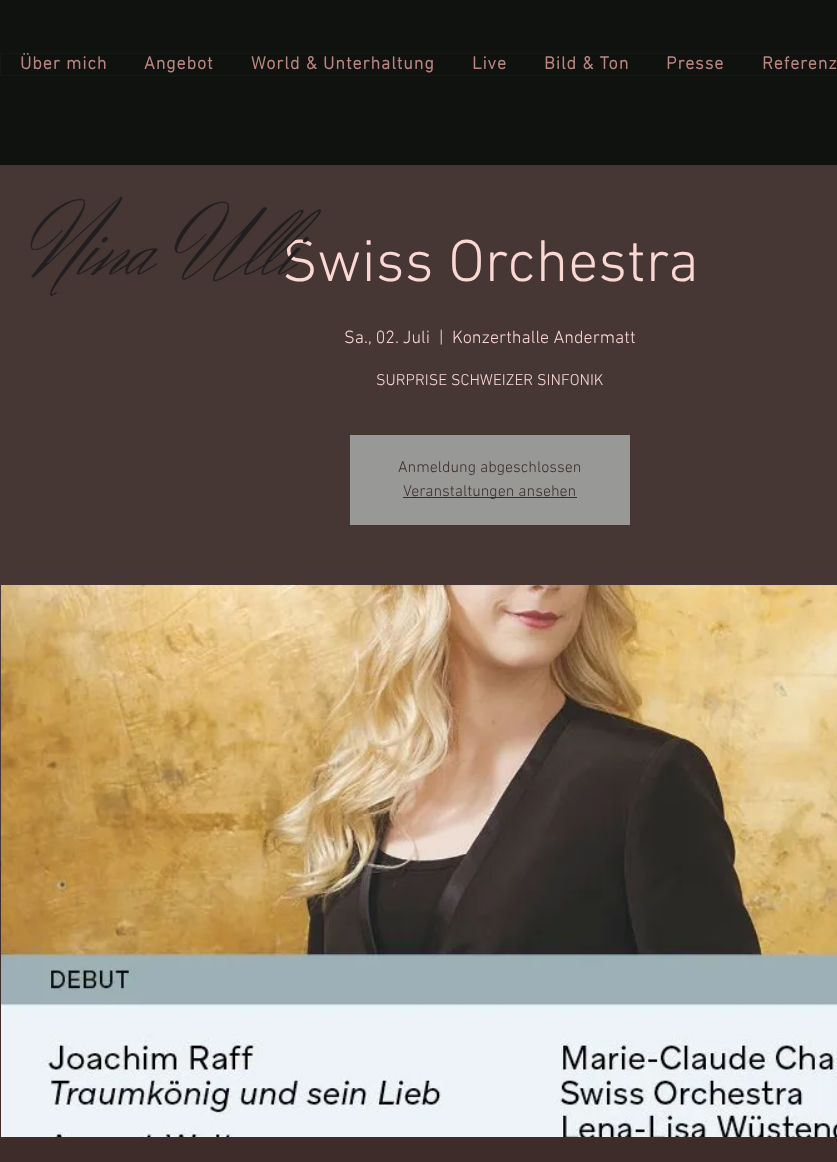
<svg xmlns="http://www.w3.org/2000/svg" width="837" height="1162">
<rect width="100%" height="100%" fill="#0f120f"/>
<rect x="0.5" y="53.5" width="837" height="22" fill="none" stroke="#151815"/>
<text x="20" y="69" style="font-family:'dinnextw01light';font-size:18px;font-weight:bold;letter-spacing:0.9px;fill:#b98580">Über mich</text>
<text x="144" y="69" style="font-family:'dinnextw01light';font-size:18px;font-weight:bold;letter-spacing:0.9px;fill:#b98580">Angebot</text>
<text x="251" y="69" style="font-family:'dinnextw01light';font-size:18px;font-weight:bold;letter-spacing:0.9px;fill:#b98580">World &amp; Unterhaltung</text>
<text x="472" y="69" style="font-family:'dinnextw01light';font-size:18px;font-weight:bold;letter-spacing:0.9px;fill:#b98580">Live</text>
<text x="544" y="69" style="font-family:'dinnextw01light';font-size:18px;font-weight:bold;letter-spacing:0.9px;fill:#b98580">Bild &amp; Ton</text>
<text x="666" y="69" style="font-family:'dinnextw01light';font-size:18px;font-weight:bold;letter-spacing:0.9px;fill:#b98580">Presse</text>
<text x="762" y="69" style="font-family:'dinnextw01light';font-size:18px;font-weight:bold;letter-spacing:0.9px;fill:#b98580">Referenz</text>
<rect y="165" width="837" height="696" fill="#463735"/>
<text x="282" y="281" style="font-family:'dinnextw01light';font-size:60px;font-weight:300;fill:#fbd8d4">Swiss Orchestra</text>
<image x="30" y="196" width="292" height="100" href="media/1.png"/>
<text x="344" y="343" style="font-family:'dinnextw01light';font-size:18px;font-weight:300;fill:#fbd8d4">Sa., 02. Juli</text>
<text x="439" y="343" style="font-family:'dinnextw01light';font-size:18px;font-weight:300;fill:#fbd8d4">|</text>
<text x="452" y="343" style="font-family:'dinnextw01light';font-size:18px;font-weight:300;fill:#fbd8d4">Konzerthalle Andermatt</text>
<text x="376" y="385" style="font-family:'dinnextw01light';font-size:16px;font-weight:300;fill:#fbd8d4">SURPRISE SCHWEIZER SINFONIK</text>
<rect x="350" y="435" width="280" height="90" fill="#989897"/>
<text x="398" y="472" style="font-family:'dinnextw01light';font-size:16px;font-weight:300;fill:#3d2c2a">Anmeldung abgeschlossen</text>
<rect x="403" y="497" width="174" height="1" fill="#3d2c2a"/>
<text x="403" y="496" style="font-family:'dinnextw01light';font-size:16px;font-weight:300;fill:#3d2c2a">Veranstaltungen ansehen</text>
<rect y="861" width="837" height="301" fill="#3d2c2a"/>
<image x="1" y="585" width="836" height="552" href="media/2.png"/>
</svg>
